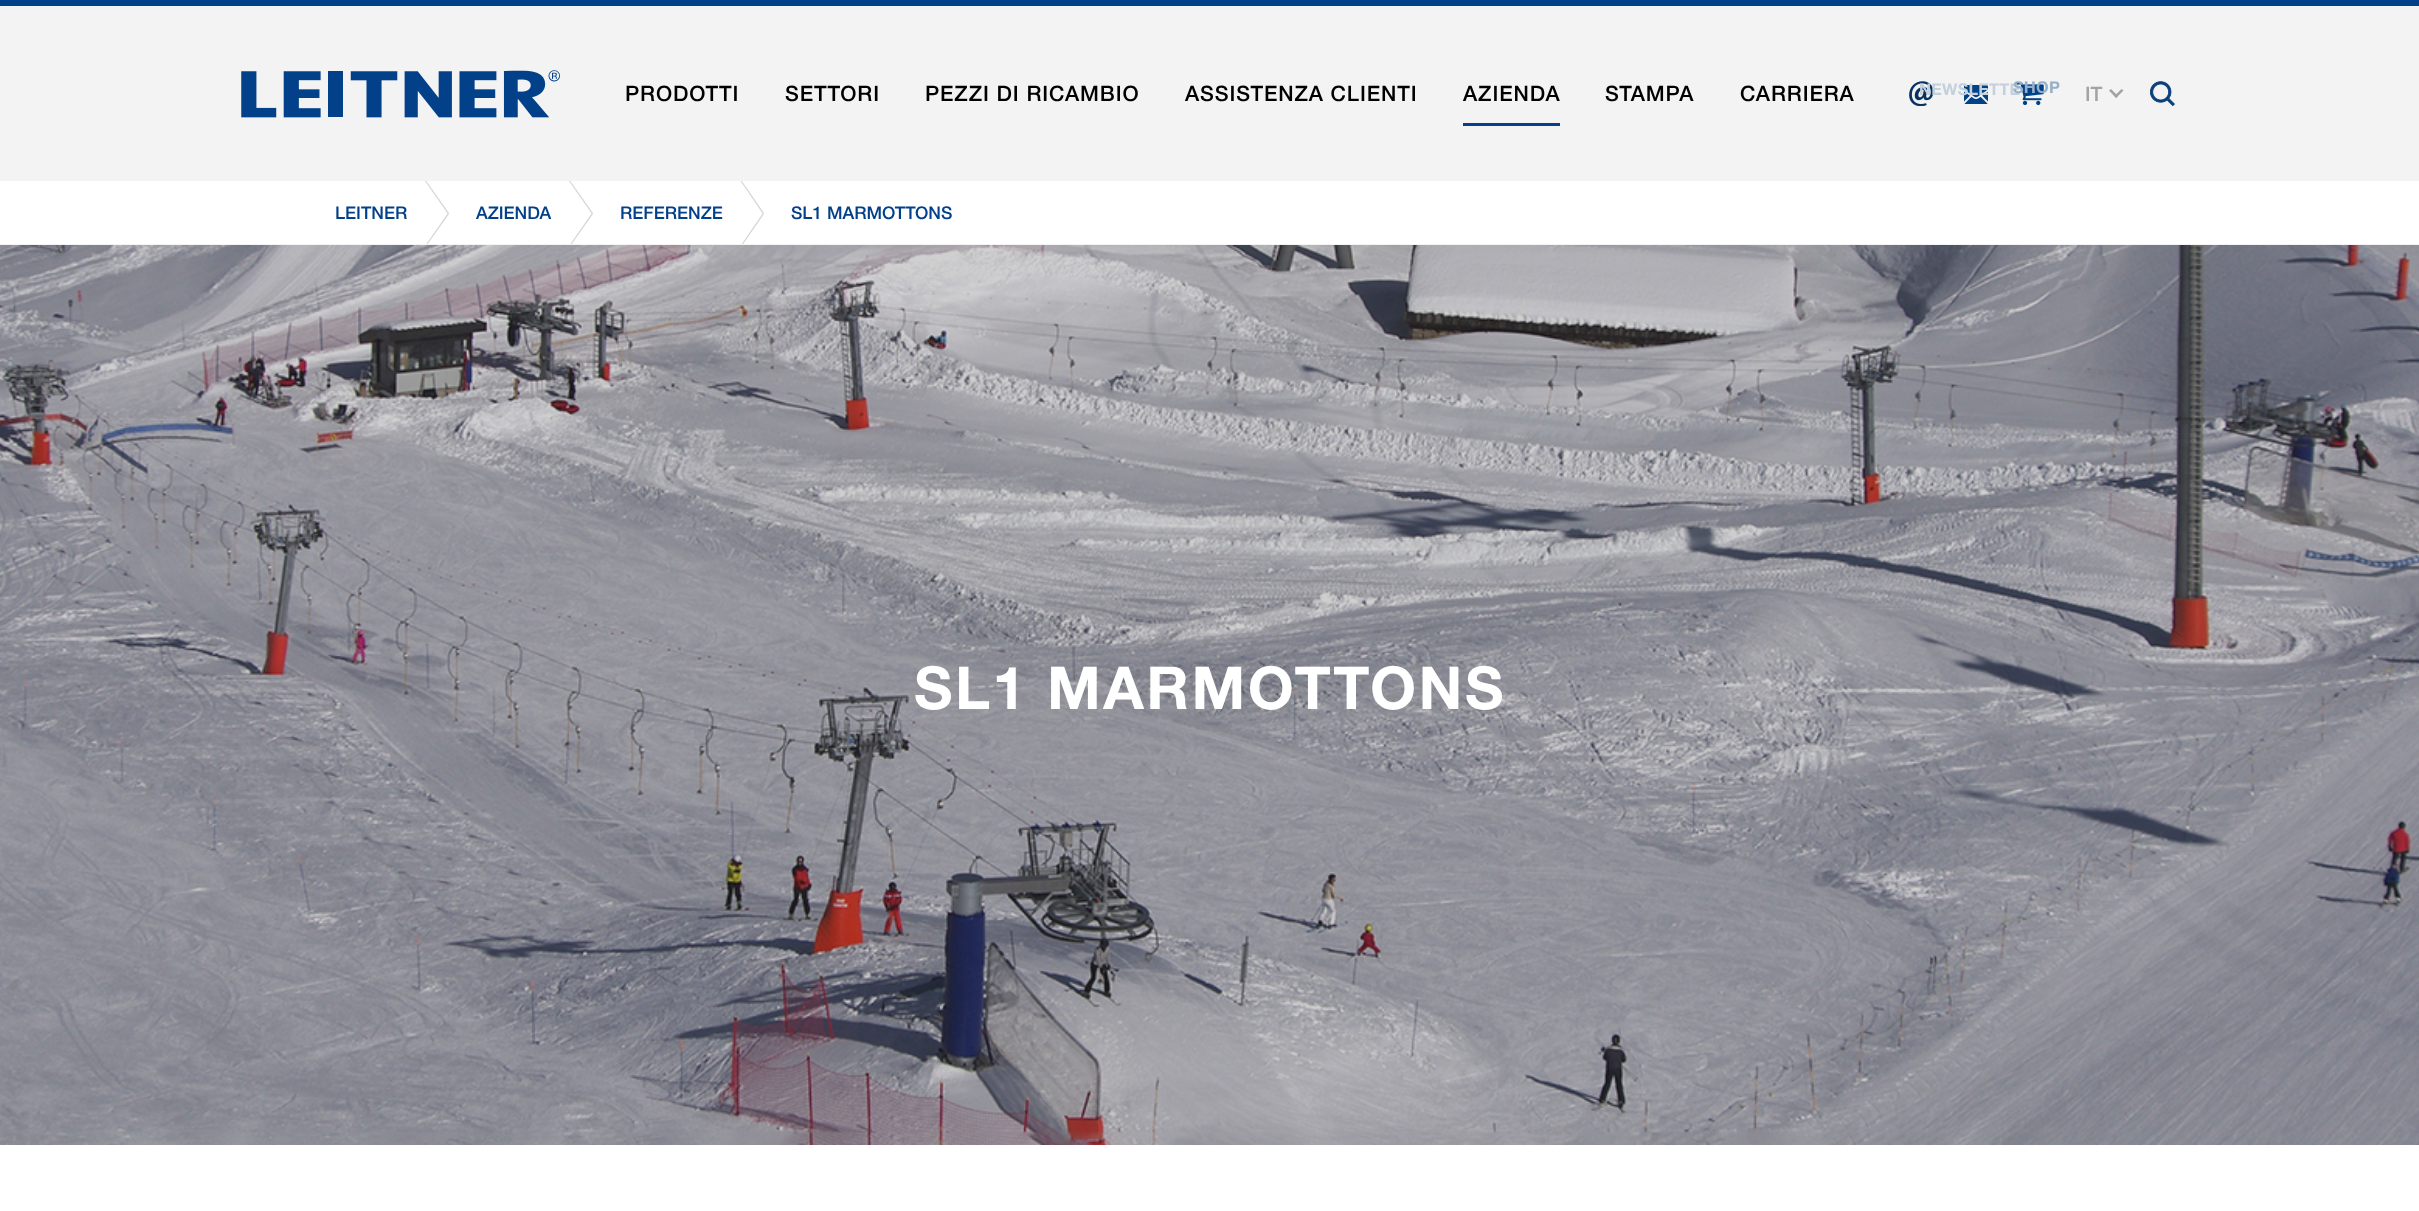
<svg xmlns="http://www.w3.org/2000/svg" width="2419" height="1211">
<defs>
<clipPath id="clip1"><rect x="335" y="181" width="1750" height="63"/></clipPath>
</defs>
<rect width="100%" height="100%" fill="#fff"/>
<rect y="6" width="2419" height="175" fill="#f3f3f3"/>
<rect width="2419" height="6" fill="#024089"/>
<image x="241" y="70" width="319" height="48" href="media/1.png"/>
<image x="1909" y="81" width="25" height="25" href="media/2.png"/>
<text x="625" y="101" style="font-family:Helvetica Neue;font-size:21.25px;font-weight:500;letter-spacing:0.9px;fill:#000">PRODOTTI</text>
<text x="785" y="101" style="font-family:Helvetica Neue;font-size:21.25px;font-weight:500;letter-spacing:0.9px;fill:#000">SETTORI</text>
<text x="925" y="101" style="font-family:Helvetica Neue;font-size:21.25px;font-weight:500;letter-spacing:0.9px;fill:#000">PEZZI DI RICAMBIO</text>
<text x="1185" y="101" style="font-family:Helvetica Neue;font-size:21.25px;font-weight:500;letter-spacing:0.9px;fill:#000">ASSISTENZA CLIENTI</text>
<text x="1463" y="101" style="font-family:Helvetica Neue;font-size:21.25px;font-weight:500;letter-spacing:0.9px;fill:#000">AZIENDA</text>
<rect x="1463" y="123" width="97" height="3" fill="#024089"/>
<text x="1605" y="101" style="font-family:Helvetica Neue;font-size:21.25px;font-weight:500;letter-spacing:0.9px;fill:#000">STAMPA</text>
<text x="1740" y="101" style="font-family:Helvetica Neue;font-size:21.25px;font-weight:500;letter-spacing:0.9px;fill:#000">CARRIERA</text>
<image x="1964" y="85" width="24" height="19" href="media/3.png"/>
<text x="1919" y="95" style="font-family:Helvetica Neue;font-size:16.25px;font-weight:bold;letter-spacing:0.25px;fill:#c5d0dd">NEWSLETTE</text>
<image x="2016" y="82" width="28" height="24" href="media/4.png"/>
<text x="2013" y="93" style="font-family:Helvetica Neue;font-size:16.25px;font-weight:bold;letter-spacing:0.25px;fill:#97b0ca">SHOP</text>
<text x="2085" y="101" style="font-family:Helvetica Neue;font-size:20px;font-weight:500;fill:#a4a2a4">IT</text>
<path d="M2123.5 90.5l-7.5 7.5l-1.5-2l7-7z" fill="#a4a2a4"/>
<path d="M2118 96l-2 2l-7-7.5l2-1.5z" fill="#a4a2a4"/>
<image x="2150" y="81" width="25" height="25" href="media/5.png"/>
<rect y="244" width="2419" height="1" fill="#f3f3f3"/>
<text x="335" y="219" style="font-family:Helvetica Neue;font-size:17.5px;font-weight:500;fill:#024089">LEITNER</text>
<g clip-path="url(#clip1)">
<path d="M448 214l-44-63h1l44 62z" fill="#d6d6d6"/>
</g>
<text x="476" y="219" style="font-family:Helvetica Neue;font-size:17.5px;font-weight:500;fill:#024089">AZIENDA</text>
<g clip-path="url(#clip1)">
<path d="M404 276l44-63l1 1l-44 62z" fill="#d6d6d6"/>
<path d="M592 214l-44-63h1l44 62z" fill="#d6d6d6"/>
</g>
<text x="620" y="219" style="font-family:Helvetica Neue;font-size:17.5px;font-weight:500;fill:#024089">REFERENZE</text>
<g clip-path="url(#clip1)">
<path d="M548 276l44-63l1 1l-44 62z" fill="#d6d6d6"/>
<path d="M763 214l-43-63h1l43 62z" fill="#d6d6d6"/>
</g>
<text x="791" y="219" style="font-family:Helvetica Neue;font-size:17.5px;font-weight:500;fill:#024089">SL1 MARMOTTONS</text>
<g clip-path="url(#clip1)">
<path d="M720 276l43-63l1 1l-43 62z" fill="#d6d6d6"/>
</g>
<image x="0" y="245" width="2419" height="900" href="media/6.png"/>
<text x="914" y="709" style="font-family:Helvetica Neue;font-size:59.25px;font-weight:bold;letter-spacing:2.5px;fill:#fff">SL1 MARMOTTONS</text>
</svg>
